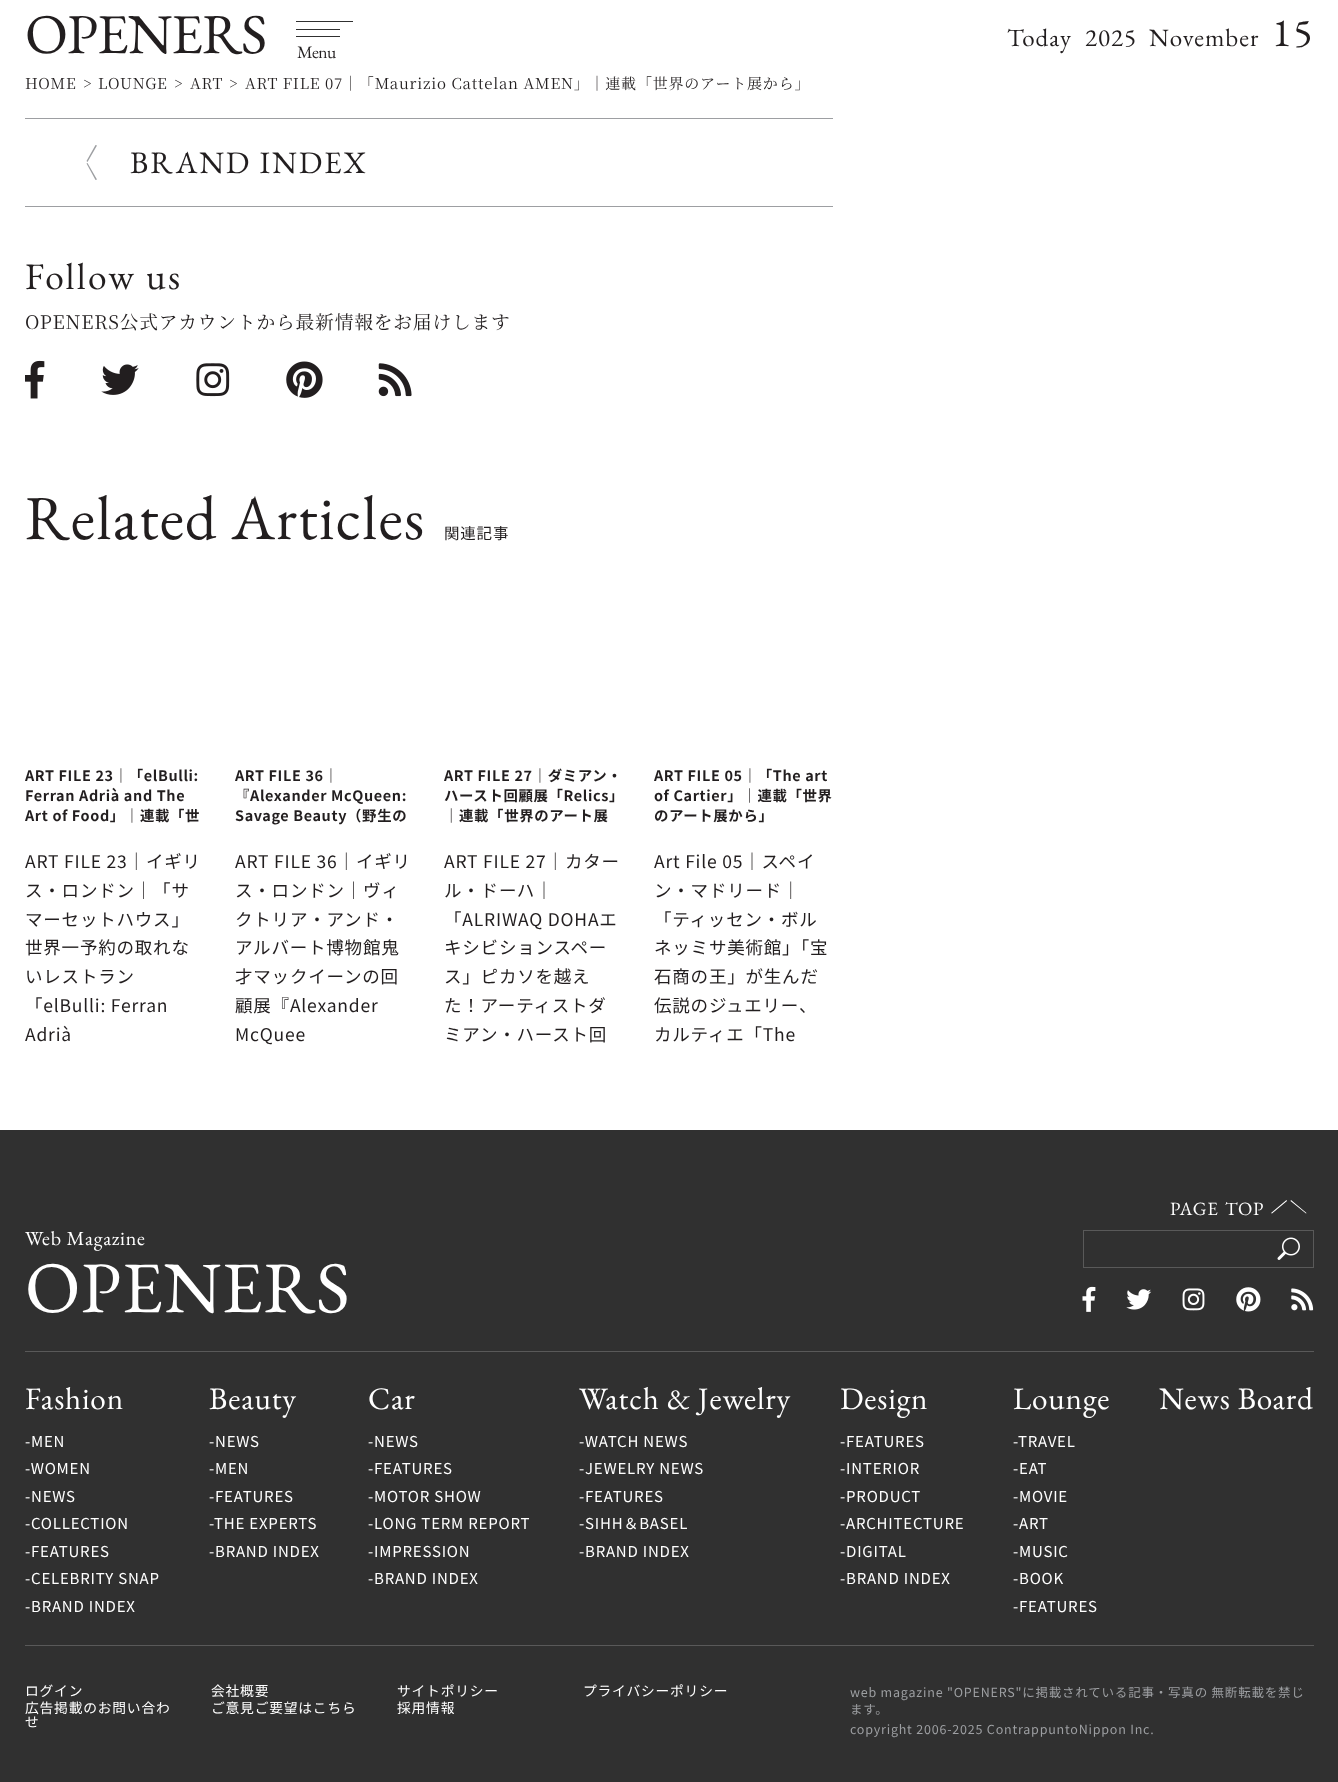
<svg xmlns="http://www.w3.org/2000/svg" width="1338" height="1782">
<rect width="100%" height="100%" fill="#fff"/>
<text x="25" y="53" style="font-family:EB Garamond;font-size:56.25px;letter-spacing:-1px;fill:#221e1f">OPENERS</text>
<rect x="296" y="21" width="57" height="1" fill="#303030"/>
<rect x="296" y="29" width="44" height="1" fill="#303030"/>
<rect x="296" y="36" width="44" height="1" fill="#303030"/>
<text x="297" y="58" style="font-family:EB Garamond;font-size:17.5px;letter-spacing:-0.5px;fill:#221e1f">Menu</text>
<text x="1007" y="46" style="font-family:EB Garamond;font-size:25px;letter-spacing:1px;fill:#221e1f">Today</text>
<text x="1085" y="46" style="font-family:EB Garamond;font-size:25px;letter-spacing:1px;fill:#221e1f">2025</text>
<text x="1149" y="46" style="font-family:EB Garamond;font-size:25px;letter-spacing:1px;fill:#221e1f">November</text>
<text x="1272" y="46" style="font-family:EB Garamond;font-size:40px;letter-spacing:2px;fill:#221e1f">15</text>
<text x="25" y="89" style="font-family:Noto Serif JP;font-size:15px;letter-spacing:0.8px;fill:#221e1f">HOME</text>
<text x="83" y="89" style="font-family:Noto Serif JP;font-size:15px;letter-spacing:0.8px;fill:#221e1f">&gt;</text>
<text x="98" y="89" style="font-family:Noto Serif JP;font-size:15px;letter-spacing:0.8px;fill:#221e1f">LOUNGE</text>
<text x="174" y="89" style="font-family:Noto Serif JP;font-size:15px;letter-spacing:0.8px;fill:#221e1f">&gt;</text>
<text x="190" y="89" style="font-family:Noto Serif JP;font-size:15px;letter-spacing:0.8px;fill:#221e1f">ART</text>
<text x="229" y="89" style="font-family:Noto Serif JP;font-size:15px;letter-spacing:0.8px;fill:#221e1f">&gt;</text>
<text x="245" y="89" style="font-family:Noto Serif JP;font-size:15px;letter-spacing:0.8px;fill:#221e1f">ART FILE 07｜「Maurizio Cattelan AMEN」｜連載「世界のアート展から」</text>
<rect x="25" y="118" width="808" height="1" fill="#9d9fa2"/>
<rect x="25" y="206" width="808" height="1" fill="#9d9fa2"/>
<path d="M95.5 145l1.5 .5l-9.5 16.5l-1-1zm-9 18.5l1-.5l9.5 16.5l-1.5 .5z" fill="#9d9fa2"/>
<text x="130" y="173" style="font-family:EB Garamond;font-size:31.25px;letter-spacing:1.9px;fill:#221e1f">BRAND INDEX</text>
<text x="25" y="289" style="font-family:EB Garamond;font-size:37.5px;letter-spacing:2.25px;fill:#221e1f">Follow us</text>
<text x="25" y="329" style="font-family:Noto Serif JP;font-size:18.75px;letter-spacing:0.8px;fill:#221e1f">OPENERS公式アカウントから最新情報をお届けします</text>
<image x="25" y="360" width="20" height="39" href="media/1.png"/>
<image x="101" y="364" width="38" height="31" href="media/2.png"/>
<image x="196" y="363" width="34" height="34" href="media/3.png"/>
<image x="286" y="361" width="37" height="37" href="media/4.png"/>
<image x="378" y="363" width="34" height="34" href="media/5.png"/>
<text x="25" y="539" style="font-family:EB Garamond;font-size:62.5px;letter-spacing:1.25px;fill:#221e1f">Related Articles</text>
<text x="444" y="539" style="font-family:Noto Sans JP;font-size:15.5px;letter-spacing:0.8px;fill:#221e1f">関連記事</text>
<text x="25" y="781" style="font-family:Noto Sans JP;font-size:14.4px;font-weight:bold;letter-spacing:0.65px;fill:#221e1f">ART FILE 23｜「elBulli:</text>
<text x="25" y="801" style="font-family:Noto Sans JP;font-size:14.4px;font-weight:bold;letter-spacing:0.65px;fill:#221e1f">Ferran Adrià and The</text>
<text x="25" y="821" style="font-family:Noto Sans JP;font-size:14.4px;font-weight:bold;letter-spacing:0.65px;fill:#221e1f">Art of Food」｜連載「世</text>
<text x="25" y="868" style="font-family:Noto Sans JP;font-size:17.5px;letter-spacing:0.8px;fill:#221e1f">ART FILE 23｜イギリ</text>
<text x="25" y="897" style="font-family:Noto Sans JP;font-size:17.5px;letter-spacing:0.8px;fill:#221e1f">ス・ロンドン｜「サ</text>
<text x="25" y="926" style="font-family:Noto Sans JP;font-size:17.5px;letter-spacing:0.8px;fill:#221e1f">マーセットハウス」</text>
<text x="25" y="954" style="font-family:Noto Sans JP;font-size:17.5px;letter-spacing:0.8px;fill:#221e1f">世界一予約の取れな</text>
<text x="25" y="983" style="font-family:Noto Sans JP;font-size:17.5px;letter-spacing:0.8px;fill:#221e1f">いレストラン</text>
<text x="25" y="1012" style="font-family:Noto Sans JP;font-size:17.5px;letter-spacing:0.8px;fill:#221e1f">「elBulli: Ferran</text>
<text x="25" y="1041" style="font-family:Noto Sans JP;font-size:17.5px;letter-spacing:0.8px;fill:#221e1f">Adrià</text>
<text x="235" y="781" style="font-family:Noto Sans JP;font-size:14.4px;font-weight:bold;letter-spacing:0.65px;fill:#221e1f">ART FILE 36｜</text>
<text x="235" y="801" style="font-family:Noto Sans JP;font-size:14.4px;font-weight:bold;letter-spacing:0.65px;fill:#221e1f">『Alexander McQueen:</text>
<text x="235" y="821" style="font-family:Noto Sans JP;font-size:14.4px;font-weight:bold;letter-spacing:0.65px;fill:#221e1f">Savage Beauty（野生の</text>
<text x="235" y="868" style="font-family:Noto Sans JP;font-size:17.5px;letter-spacing:0.8px;fill:#221e1f">ART FILE 36｜イギリ</text>
<text x="235" y="897" style="font-family:Noto Sans JP;font-size:17.5px;letter-spacing:0.8px;fill:#221e1f">ス・ロンドン｜ヴィ</text>
<text x="235" y="926" style="font-family:Noto Sans JP;font-size:17.5px;letter-spacing:0.8px;fill:#221e1f">クトリア・アンド・</text>
<text x="235" y="954" style="font-family:Noto Sans JP;font-size:17.5px;letter-spacing:0.8px;fill:#221e1f">アルバート博物館鬼</text>
<text x="235" y="983" style="font-family:Noto Sans JP;font-size:17.5px;letter-spacing:0.8px;fill:#221e1f">才マックイーンの回</text>
<text x="235" y="1012" style="font-family:Noto Sans JP;font-size:17.5px;letter-spacing:0.8px;fill:#221e1f">顧展『Alexander</text>
<text x="235" y="1041" style="font-family:Noto Sans JP;font-size:17.5px;letter-spacing:0.8px;fill:#221e1f">McQuee</text>
<text x="444" y="781" style="font-family:Noto Sans JP;font-size:14.4px;font-weight:bold;letter-spacing:0.65px;fill:#221e1f">ART FILE 27｜ダミアン・</text>
<text x="444" y="801" style="font-family:Noto Sans JP;font-size:14.4px;font-weight:bold;letter-spacing:0.65px;fill:#221e1f">ハースト回顧展「Relics」</text>
<text x="444" y="821" style="font-family:Noto Sans JP;font-size:14.4px;font-weight:bold;letter-spacing:0.65px;fill:#221e1f">｜連載「世界のアート展</text>
<text x="444" y="868" style="font-family:Noto Sans JP;font-size:17.5px;letter-spacing:0.8px;fill:#221e1f">ART FILE 27｜カター</text>
<text x="444" y="897" style="font-family:Noto Sans JP;font-size:17.5px;letter-spacing:0.8px;fill:#221e1f">ル・ドーハ｜</text>
<text x="444" y="926" style="font-family:Noto Sans JP;font-size:17.5px;letter-spacing:0.8px;fill:#221e1f">「ALRIWAQ DOHAエ</text>
<text x="444" y="954" style="font-family:Noto Sans JP;font-size:17.5px;letter-spacing:0.8px;fill:#221e1f">キシビションスペー</text>
<text x="444" y="983" style="font-family:Noto Sans JP;font-size:17.5px;letter-spacing:0.8px;fill:#221e1f">ス」ピカソを越え</text>
<text x="444" y="1012" style="font-family:Noto Sans JP;font-size:17.5px;letter-spacing:0.8px;fill:#221e1f">た！アーティストダ</text>
<text x="444" y="1041" style="font-family:Noto Sans JP;font-size:17.5px;letter-spacing:0.8px;fill:#221e1f">ミアン・ハースト回</text>
<text x="654" y="781" style="font-family:Noto Sans JP;font-size:14.4px;font-weight:bold;letter-spacing:0.65px;fill:#221e1f">ART FILE 05｜「The art</text>
<text x="654" y="801" style="font-family:Noto Sans JP;font-size:14.4px;font-weight:bold;letter-spacing:0.65px;fill:#221e1f">of Cartier」｜連載「世界</text>
<text x="654" y="821" style="font-family:Noto Sans JP;font-size:14.4px;font-weight:bold;letter-spacing:0.65px;fill:#221e1f">のアート展から」</text>
<text x="654" y="868" style="font-family:Noto Sans JP;font-size:17.5px;letter-spacing:0.8px;fill:#221e1f">Art File 05｜スペイ</text>
<text x="654" y="897" style="font-family:Noto Sans JP;font-size:17.5px;letter-spacing:0.8px;fill:#221e1f">ン・マドリード｜</text>
<text x="654" y="926" style="font-family:Noto Sans JP;font-size:17.5px;letter-spacing:0.8px;fill:#221e1f">「ティッセン・ボル</text>
<text x="654" y="954" style="font-family:Noto Sans JP;font-size:17.5px;letter-spacing:0.8px;fill:#221e1f">ネッミサ美術館」「宝</text>
<text x="654" y="983" style="font-family:Noto Sans JP;font-size:17.5px;letter-spacing:0.8px;fill:#221e1f">石商の王」が生んだ</text>
<text x="654" y="1012" style="font-family:Noto Sans JP;font-size:17.5px;letter-spacing:0.8px;fill:#221e1f">伝説のジュエリー、</text>
<text x="654" y="1041" style="font-family:Noto Sans JP;font-size:17.5px;letter-spacing:0.8px;fill:#221e1f">カルティエ「The</text>
<rect y="1130" width="1338" height="652" fill="#303030"/>
<text x="1170" y="1215" style="font-family:EB Garamond;font-size:18.75px;letter-spacing:0.8px;fill:#fff">PAGE</text>
<text x="1225" y="1215" style="font-family:EB Garamond;font-size:18.75px;letter-spacing:0.8px;fill:#fff">TOP</text>
<path d="M1271 1213l15.5-13l.5 1l-15 12.5zm20-13l15.5 13l-.5 .5l-15.5-12.5z" fill="#fff"/>
<text x="25" y="1245" style="font-family:EB Garamond;font-size:20px;letter-spacing:0.8px;fill:#fff">Web Magazine</text>
<text x="25" y="1312" style="font-family:EB Garamond;font-size:72.5px;letter-spacing:0.8px;fill:#fff">OPENERS</text>
<rect x="1083.5" y="1230.5" width="230" height="37" fill="none" stroke="#595959"/>
<image x="1277" y="1237" width="23" height="23" href="media/6.png"/>
<image x="1082" y="1286" width="14" height="26" href="media/7.png"/>
<image x="1126" y="1289" width="26" height="21" href="media/8.png"/>
<image x="1182" y="1288" width="23" height="23" href="media/9.png"/>
<image x="1236" y="1287" width="25" height="25" href="media/10.png"/>
<image x="1291" y="1288" width="23" height="23" href="media/11.png"/>
<rect x="25" y="1351" width="1289" height="1" fill="#595959"/>
<rect x="25" y="1645" width="1289" height="1" fill="#595959"/>
<text x="25" y="1409" style="font-family:EB Garamond;font-size:31.25px;letter-spacing:0.8px;fill:#fff">Fashion</text>
<text x="25" y="1447" style="font-family:Noto Sans JP;font-size:15px;letter-spacing:0.8px;fill:#fff">-MEN</text>
<text x="25" y="1474" style="font-family:Noto Sans JP;font-size:15px;letter-spacing:0.8px;fill:#fff">-WOMEN</text>
<text x="25" y="1502" style="font-family:Noto Sans JP;font-size:15px;letter-spacing:0.8px;fill:#fff">-NEWS</text>
<text x="25" y="1529" style="font-family:Noto Sans JP;font-size:15px;letter-spacing:0.8px;fill:#fff">-COLLECTION</text>
<text x="25" y="1557" style="font-family:Noto Sans JP;font-size:15px;letter-spacing:0.8px;fill:#fff">-FEATURES</text>
<text x="25" y="1584" style="font-family:Noto Sans JP;font-size:15px;letter-spacing:0.8px;fill:#fff">-CELEBRITY SNAP</text>
<text x="25" y="1612" style="font-family:Noto Sans JP;font-size:15px;letter-spacing:0.8px;fill:#fff">-BRAND INDEX</text>
<text x="209" y="1409" style="font-family:EB Garamond;font-size:31.25px;letter-spacing:0.8px;fill:#fff">Beauty</text>
<text x="209" y="1447" style="font-family:Noto Sans JP;font-size:15px;letter-spacing:0.8px;fill:#fff">-NEWS</text>
<text x="209" y="1474" style="font-family:Noto Sans JP;font-size:15px;letter-spacing:0.8px;fill:#fff">-MEN</text>
<text x="209" y="1502" style="font-family:Noto Sans JP;font-size:15px;letter-spacing:0.8px;fill:#fff">-FEATURES</text>
<text x="209" y="1529" style="font-family:Noto Sans JP;font-size:15px;letter-spacing:0.8px;fill:#fff">-</text>
<text x="214" y="1529" style="font-family:Noto Sans JP;font-size:15px;letter-spacing:0.8px;fill:#fff">THE EXPERTS</text>
<text x="209" y="1557" style="font-family:Noto Sans JP;font-size:15px;letter-spacing:0.8px;fill:#fff">-BRAND INDEX</text>
<text x="368" y="1409" style="font-family:EB Garamond;font-size:31.25px;letter-spacing:0.8px;fill:#fff">Car</text>
<text x="368" y="1447" style="font-family:Noto Sans JP;font-size:15px;letter-spacing:0.8px;fill:#fff">-NEWS</text>
<text x="368" y="1474" style="font-family:Noto Sans JP;font-size:15px;letter-spacing:0.8px;fill:#fff">-FEATURES</text>
<text x="368" y="1502" style="font-family:Noto Sans JP;font-size:15px;letter-spacing:0.8px;fill:#fff">-MOTOR SHOW</text>
<text x="368" y="1529" style="font-family:Noto Sans JP;font-size:15px;letter-spacing:0.8px;fill:#fff">-LONG TERM REPORT</text>
<text x="368" y="1557" style="font-family:Noto Sans JP;font-size:15px;letter-spacing:0.8px;fill:#fff">-IMPRESSION</text>
<text x="368" y="1584" style="font-family:Noto Sans JP;font-size:15px;letter-spacing:0.8px;fill:#fff">-BRAND INDEX</text>
<text x="579" y="1409" style="font-family:EB Garamond;font-size:31.25px;letter-spacing:0.8px;fill:#fff">Watch &amp; Jewelry</text>
<text x="579" y="1447" style="font-family:Noto Sans JP;font-size:15px;letter-spacing:0.8px;fill:#fff">-WATCH NEWS</text>
<text x="579" y="1474" style="font-family:Noto Sans JP;font-size:15px;letter-spacing:0.8px;fill:#fff">-</text>
<text x="585" y="1474" style="font-family:Noto Sans JP;font-size:15px;letter-spacing:0.8px;fill:#fff">JEWELRY NEWS</text>
<text x="579" y="1502" style="font-family:Noto Sans JP;font-size:15px;letter-spacing:0.8px;fill:#fff">-FEATURES</text>
<text x="579" y="1529" style="font-family:Noto Sans JP;font-size:15px;letter-spacing:0.8px;fill:#fff">-</text>
<text x="585" y="1529" style="font-family:Noto Sans JP;font-size:15px;letter-spacing:0.8px;fill:#fff">SIHH＆BASEL</text>
<text x="579" y="1557" style="font-family:Noto Sans JP;font-size:15px;letter-spacing:0.8px;fill:#fff">-BRAND INDEX</text>
<text x="840" y="1409" style="font-family:EB Garamond;font-size:31.25px;letter-spacing:0.8px;fill:#fff">Design</text>
<text x="840" y="1447" style="font-family:Noto Sans JP;font-size:15px;letter-spacing:0.8px;fill:#fff">-FEATURES</text>
<text x="840" y="1474" style="font-family:Noto Sans JP;font-size:15px;letter-spacing:0.8px;fill:#fff">-INTERIOR</text>
<text x="840" y="1502" style="font-family:Noto Sans JP;font-size:15px;letter-spacing:0.8px;fill:#fff">-PRODUCT</text>
<text x="840" y="1529" style="font-family:Noto Sans JP;font-size:15px;letter-spacing:0.8px;fill:#fff">-ARCHITECTURE</text>
<text x="840" y="1557" style="font-family:Noto Sans JP;font-size:15px;letter-spacing:0.8px;fill:#fff">-DIGITAL</text>
<text x="840" y="1584" style="font-family:Noto Sans JP;font-size:15px;letter-spacing:0.8px;fill:#fff">-BRAND INDEX</text>
<text x="1013" y="1409" style="font-family:EB Garamond;font-size:31.25px;letter-spacing:0.8px;fill:#fff">Lounge</text>
<text x="1013" y="1447" style="font-family:Noto Sans JP;font-size:15px;letter-spacing:0.8px;fill:#fff">-</text>
<text x="1018" y="1447" style="font-family:Noto Sans JP;font-size:15px;letter-spacing:0.8px;fill:#fff">TRAVEL</text>
<text x="1013" y="1474" style="font-family:Noto Sans JP;font-size:15px;letter-spacing:0.8px;fill:#fff">-EAT</text>
<text x="1013" y="1502" style="font-family:Noto Sans JP;font-size:15px;letter-spacing:0.8px;fill:#fff">-MOVIE</text>
<text x="1013" y="1529" style="font-family:Noto Sans JP;font-size:15px;letter-spacing:0.8px;fill:#fff">-ART</text>
<text x="1013" y="1557" style="font-family:Noto Sans JP;font-size:15px;letter-spacing:0.8px;fill:#fff">-MUSIC</text>
<text x="1013" y="1584" style="font-family:Noto Sans JP;font-size:15px;letter-spacing:0.8px;fill:#fff">-BOOK</text>
<text x="1013" y="1612" style="font-family:Noto Sans JP;font-size:15px;letter-spacing:0.8px;fill:#fff">-FEATURES</text>
<text x="1159" y="1409" style="font-family:EB Garamond;font-size:31.25px;letter-spacing:0.8px;fill:#fff">News Board</text>
<text x="25" y="1696" style="font-family:Noto Sans JP;font-size:13.75px;letter-spacing:0.8px;fill:#fff">ログイン</text>
<text x="211" y="1696" style="font-family:Noto Sans JP;font-size:13.75px;letter-spacing:0.8px;fill:#fff">会社概要</text>
<text x="397" y="1696" style="font-family:Noto Sans JP;font-size:13.75px;letter-spacing:0.8px;fill:#fff">サイトポリシー</text>
<text x="583" y="1696" style="font-family:Noto Sans JP;font-size:13.75px;letter-spacing:0.8px;fill:#fff">プライバシーポリシー</text>
<text x="25" y="1713" style="font-family:Noto Sans JP;font-size:13.75px;letter-spacing:0.8px;fill:#fff">広告掲載のお問い合わ</text>
<text x="25" y="1727" style="font-family:Noto Sans JP;font-size:13.75px;letter-spacing:0.8px;fill:#fff">せ</text>
<text x="211" y="1713" style="font-family:Noto Sans JP;font-size:13.75px;letter-spacing:0.8px;fill:#fff">ご意見ご要望はこちら</text>
<text x="397" y="1713" style="font-family:Noto Sans JP;font-size:13.75px;letter-spacing:0.8px;fill:#fff">採用情報</text>
<text x="850" y="1697" style="font-family:Noto Sans JP;font-size:12.5px;letter-spacing:0.8px;fill:#9d9fa2">web magazine "OPENERS"に掲載されている記事・写真の 無断転載を禁じ</text>
<text x="850" y="1714" style="font-family:Noto Sans JP;font-size:12.5px;letter-spacing:0.8px;fill:#9d9fa2">ます。</text>
<text x="850" y="1734" style="font-family:Noto Sans JP;font-size:12.5px;letter-spacing:0.8px;fill:#9d9fa2">copyright 2006-2025 ContrappuntoNippon Inc.</text>
</svg>
